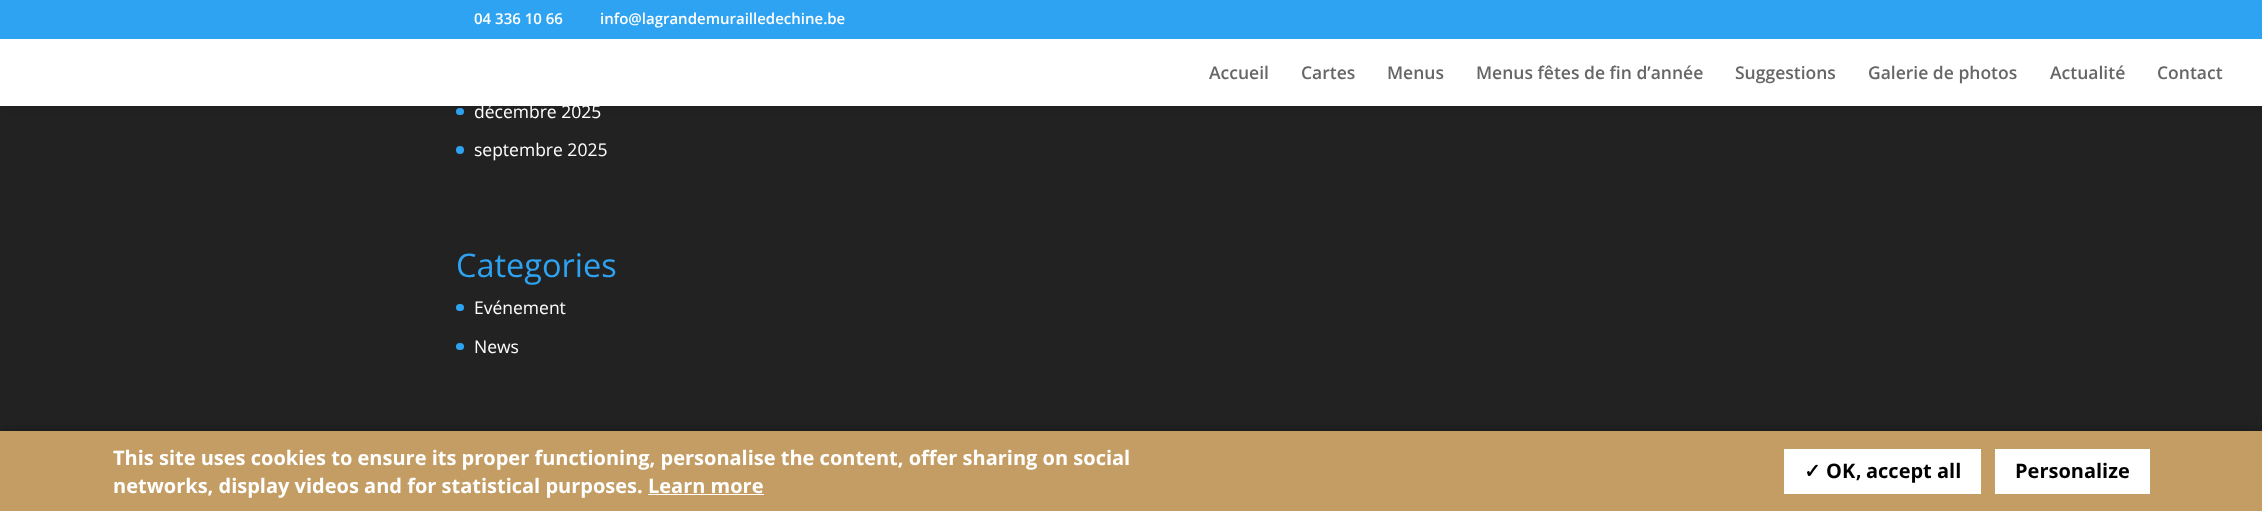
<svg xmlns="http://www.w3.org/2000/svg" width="2262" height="511">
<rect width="100%" height="100%" fill="#222"/>
<rect x="456" y="108" width="8" height="7" rx="3.5" fill="#2ea3f2"/>
<rect y="39" width="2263" height="67" fill="#0000001a" filter="blur(4.5px)"/>
<rect width="2262" height="39" fill="#2ea3f2"/>
<text x="474" y="24" style="font-family:Open Sans;font-size:15px;font-weight:600;fill:#fff">04 336 10 66</text>
<text x="600" y="24" style="font-family:Open Sans;font-size:15px;font-weight:600;fill:#fff">info@lagrandemurailledechine.be</text>
<rect y="39" width="2262" height="67" fill="#fff"/>
<text x="1209" y="79" style="font-family:Open Sans;font-size:17.5px;font-weight:600;fill:#666">Accueil</text>
<text x="1301" y="79" style="font-family:Open Sans;font-size:17.5px;font-weight:600;fill:#666">Cartes</text>
<text x="1387" y="79" style="font-family:Open Sans;font-size:17.5px;font-weight:600;fill:#666">Menus</text>
<text x="1476" y="79" style="font-family:Open Sans;font-size:17.5px;font-weight:600;fill:#666">Menus fêtes de fin d’année</text>
<text x="1735" y="79" style="font-family:Open Sans;font-size:17.5px;font-weight:600;fill:#666">Suggestions</text>
<text x="1868" y="79" style="font-family:Open Sans;font-size:17.5px;font-weight:600;fill:#666">Galerie de photos</text>
<text x="2050" y="79" style="font-family:Open Sans;font-size:17.5px;font-weight:600;fill:#666">Actualité</text>
<text x="2157" y="79" style="font-family:Open Sans;font-size:17.5px;font-weight:600;fill:#666">Contact</text>
<text x="474" y="118" style="font-family:Open Sans;font-size:17.5px;fill:#fff">décembre 2025</text>
<circle cx="460" cy="150" r="4" fill="#2ea3f2"/>
<text x="474" y="156" style="font-family:Open Sans;font-size:17.5px;fill:#fff">septembre 2025</text>
<text x="456" y="277" style="font-family:Open Sans;font-size:32.5px;fill:#2ea3f2">Categories</text>
<rect x="456" y="304" width="8" height="7" rx="3.5" fill="#2ea3f2"/>
<text x="474" y="314" style="font-family:Open Sans;font-size:17.5px;fill:#fff">Evénement</text>
<rect x="456" y="343" width="8" height="7" rx="3.5" fill="#2ea3f2"/>
<text x="474" y="353" style="font-family:Open Sans;font-size:17.5px;fill:#fff">News</text>
<rect y="431" width="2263" height="80" fill="#0000004d" filter="blur(6px)"/>
<rect y="431" width="2262" height="80" fill="#c39d63"/>
<text x="113" y="465" style="font-family:Open Sans;font-size:20px;font-weight:bold;fill:#fff">This site uses cookies to ensure its proper functioning, personalise the content, offer sharing on social</text>
<text x="113" y="493" style="font-family:Open Sans;font-size:20px;font-weight:bold;fill:#fff">networks, display videos and for statistical purposes. Learn more</text>
<rect x="648" y="494" width="116" height="1" fill="#fff"/>
<rect x="1784" y="449" width="197" height="45" fill="#fff"/>
<text x="1804" y="478" style="font-family:DejaVu Sans;font-size:20px;font-weight:bold;fill:#000">✓</text>
<text x="1826" y="478" style="font-family:Open Sans;font-size:20px;font-weight:bold;fill:#000">OK</text>
<text x="1866" y="478" style="font-family:Open Sans;font-size:20px;font-weight:bold;fill:#000">accept all</text>
<text x="1855" y="478" style="font-family:DejaVu Sans;font-size:20px;font-weight:bold;fill:#000">,</text>
<rect x="1995" y="449" width="155" height="45" fill="#fff"/>
<text x="2015" y="478" style="font-family:Open Sans;font-size:20px;font-weight:bold;fill:#000">Personalize</text>
</svg>
